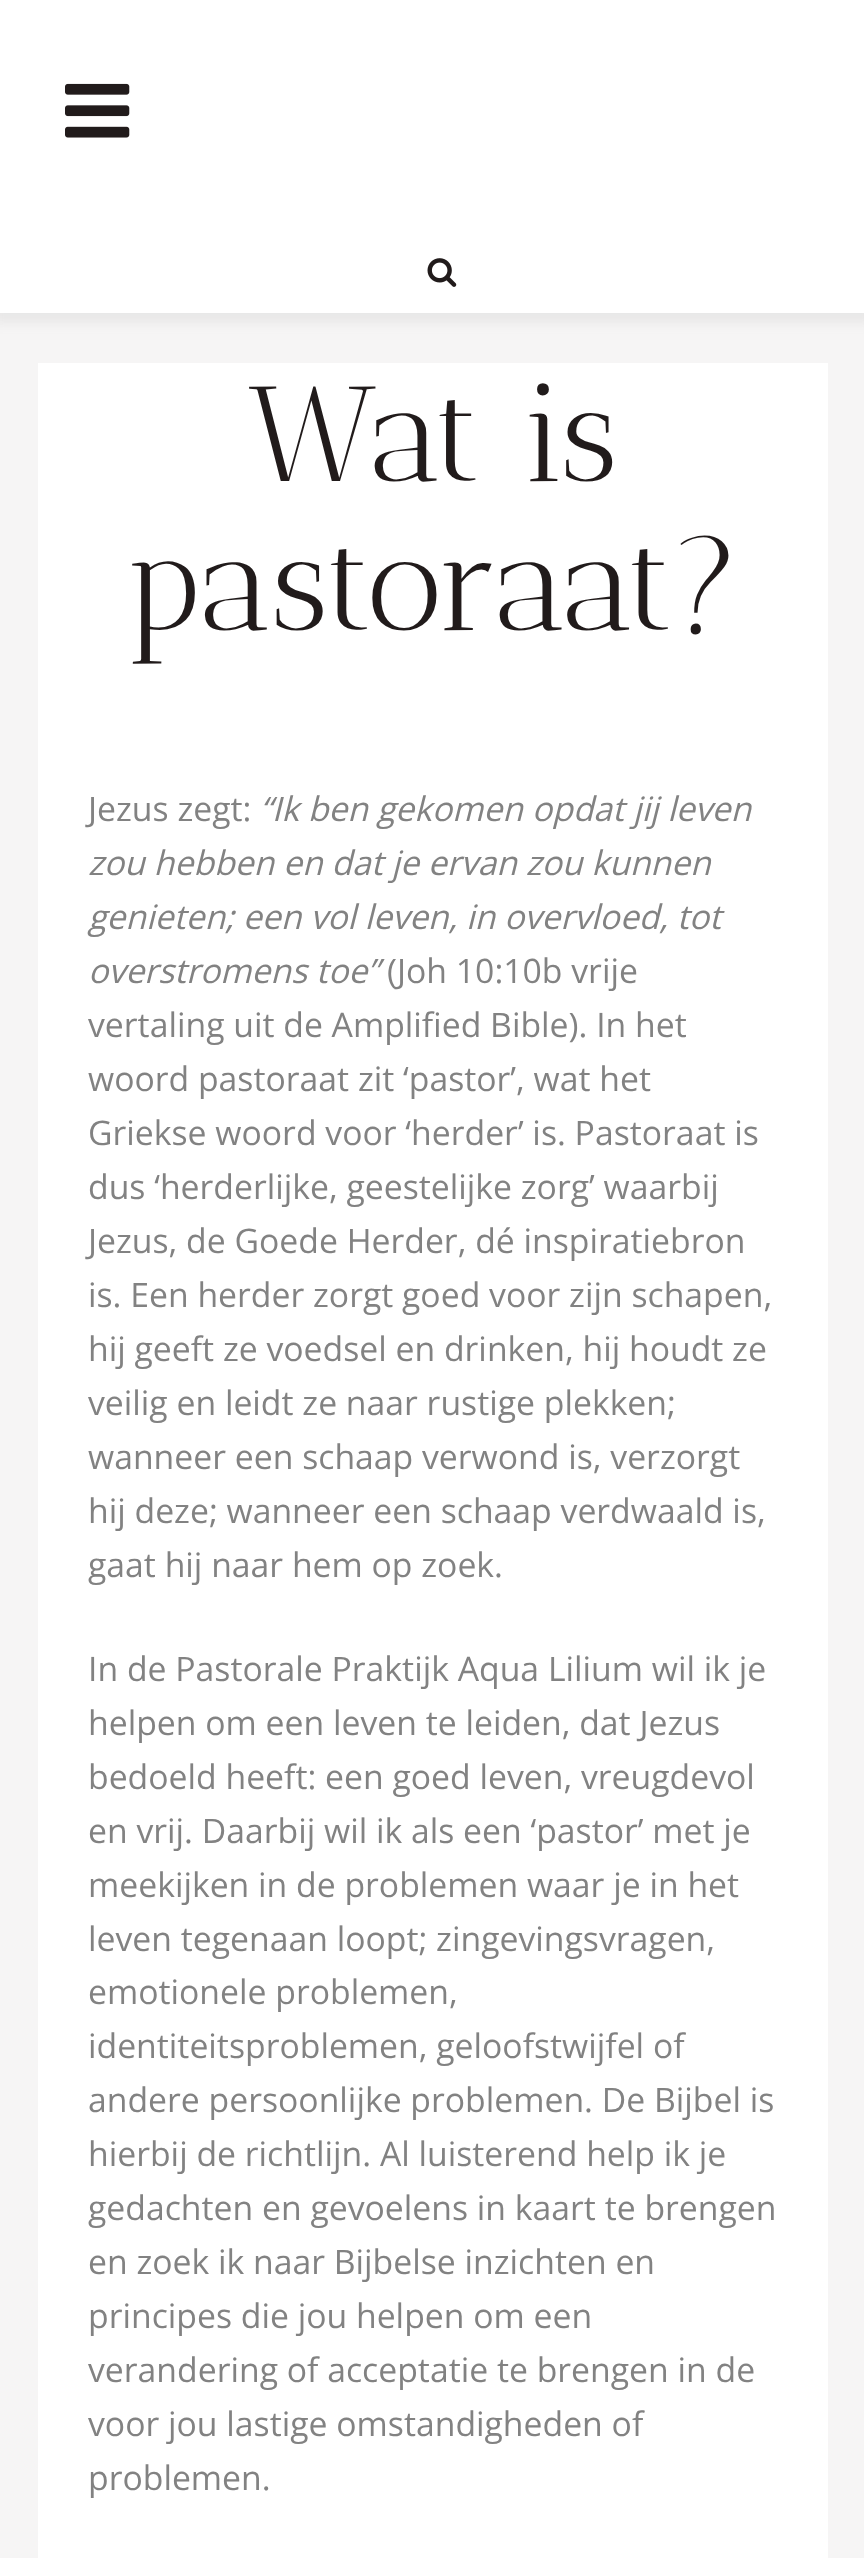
<svg xmlns="http://www.w3.org/2000/svg" width="864" height="2558">
<rect width="100%" height="100%" fill="#f6f5f5"/>
<rect x="-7" y="-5" width="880" height="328" fill="#7775751a" filter="blur(6px)"/>
<rect width="864" height="313" fill="#fff"/>
<image x="65" y="83" width="65" height="55" href="media/1.png"/>
<image x="427" y="258" width="30" height="29" href="media/2.png"/>
<rect x="38" y="363" width="790" height="2195" fill="#fff"/>
<text x="247" y="481" style="font-family:Antic Didone;font-size:135px;fill:#211b1b">Wat is</text>
<text x="124" y="630" style="font-family:Antic Didone;font-size:135px;fill:#211b1b">pastoraat?</text>
<text x="88" y="821" style="font-family:Open Sans;font-size:33.75px;fill:#828282">Jezus zegt:</text>
<text x="260" y="821" style="font-family:Open Sans;font-size:33.75px;font-style:italic;fill:#828282">“Ik ben gekomen opdat jij leven</text>
<text x="88" y="875" style="font-family:Open Sans;font-size:33.75px;font-style:italic;fill:#828282">zou hebben en dat je ervan zou kunnen</text>
<text x="88" y="929" style="font-family:Open Sans;font-size:33.75px;font-style:italic;fill:#828282">genieten; een vol leven, in overvloed, tot</text>
<text x="88" y="983" style="font-family:Open Sans;font-size:33.75px;font-style:italic;fill:#828282">overstromens toe”</text>
<text x="387" y="983" style="font-family:Open Sans;font-size:33.75px;fill:#828282">(Joh 10:10b vrije</text>
<text x="88" y="1037" style="font-family:Open Sans;font-size:33.75px;fill:#828282">vertaling uit de Amplified Bible). In het</text>
<text x="88" y="1091" style="font-family:Open Sans;font-size:33.75px;fill:#828282">woord pastoraat zit ‘pastor’, wat het</text>
<text x="88" y="1145" style="font-family:Open Sans;font-size:33.75px;fill:#828282">Griekse woord voor ‘herder’ is. Pastoraat is</text>
<text x="88" y="1199" style="font-family:Open Sans;font-size:33.75px;fill:#828282">dus ‘herderlijke, geestelijke zorg’ waarbij</text>
<text x="88" y="1253" style="font-family:Open Sans;font-size:33.75px;fill:#828282">Jezus, de Goede Herder, dé inspiratiebron</text>
<text x="88" y="1307" style="font-family:Open Sans;font-size:33.75px;fill:#828282">is. Een herder zorgt goed voor zijn schapen,</text>
<text x="88" y="1361" style="font-family:Open Sans;font-size:33.75px;fill:#828282">hij geeft ze voedsel en drinken, hij houdt ze</text>
<text x="88" y="1415" style="font-family:Open Sans;font-size:33.75px;fill:#828282">veilig en leidt ze naar rustige plekken;</text>
<text x="88" y="1469" style="font-family:Open Sans;font-size:33.75px;fill:#828282">wanneer een schaap verwond is, verzorgt</text>
<text x="88" y="1523" style="font-family:Open Sans;font-size:33.75px;fill:#828282">hij deze; wanneer een schaap verdwaald is,</text>
<text x="88" y="1577" style="font-family:Open Sans;font-size:33.75px;fill:#828282">gaat hij naar hem op zoek.</text>
<text x="88" y="1681" style="font-family:Open Sans;font-size:33.75px;fill:#828282">In de Pastorale Praktijk Aqua Lilium wil ik je</text>
<text x="88" y="1735" style="font-family:Open Sans;font-size:33.75px;fill:#828282">helpen om een leven te leiden, dat Jezus</text>
<text x="88" y="1789" style="font-family:Open Sans;font-size:33.75px;fill:#828282">bedoeld heeft: een goed leven, vreugdevol</text>
<text x="88" y="1843" style="font-family:Open Sans;font-size:33.75px;fill:#828282">en vrij. Daarbij wil ik als een ‘pastor’ met je</text>
<text x="88" y="1897" style="font-family:Open Sans;font-size:33.75px;fill:#828282">meekijken in de problemen waar je in het</text>
<text x="88" y="1951" style="font-family:Open Sans;font-size:33.75px;fill:#828282">leven tegenaan loopt; zingevingsvragen,</text>
<text x="88" y="2004" style="font-family:Open Sans;font-size:33.75px;fill:#828282">emotionele problemen,</text>
<text x="88" y="2058" style="font-family:Open Sans;font-size:33.75px;fill:#828282">identiteitsproblemen, geloofstwijfel of</text>
<text x="88" y="2112" style="font-family:Open Sans;font-size:33.75px;fill:#828282">andere persoonlijke problemen. De Bijbel is</text>
<text x="88" y="2166" style="font-family:Open Sans;font-size:33.75px;fill:#828282">hierbij de richtlijn. Al luisterend help ik je</text>
<text x="88" y="2220" style="font-family:Open Sans;font-size:33.75px;fill:#828282">gedachten en gevoelens in kaart te brengen</text>
<text x="88" y="2274" style="font-family:Open Sans;font-size:33.75px;fill:#828282">en zoek ik naar Bijbelse inzichten en</text>
<text x="88" y="2328" style="font-family:Open Sans;font-size:33.75px;fill:#828282">principes die jou helpen om een</text>
<text x="88" y="2382" style="font-family:Open Sans;font-size:33.75px;fill:#828282">verandering of acceptatie te brengen in de</text>
<text x="88" y="2436" style="font-family:Open Sans;font-size:33.75px;fill:#828282">voor jou lastige omstandigheden of</text>
<text x="88" y="2490" style="font-family:Open Sans;font-size:33.75px;fill:#828282">problemen.</text>
</svg>
